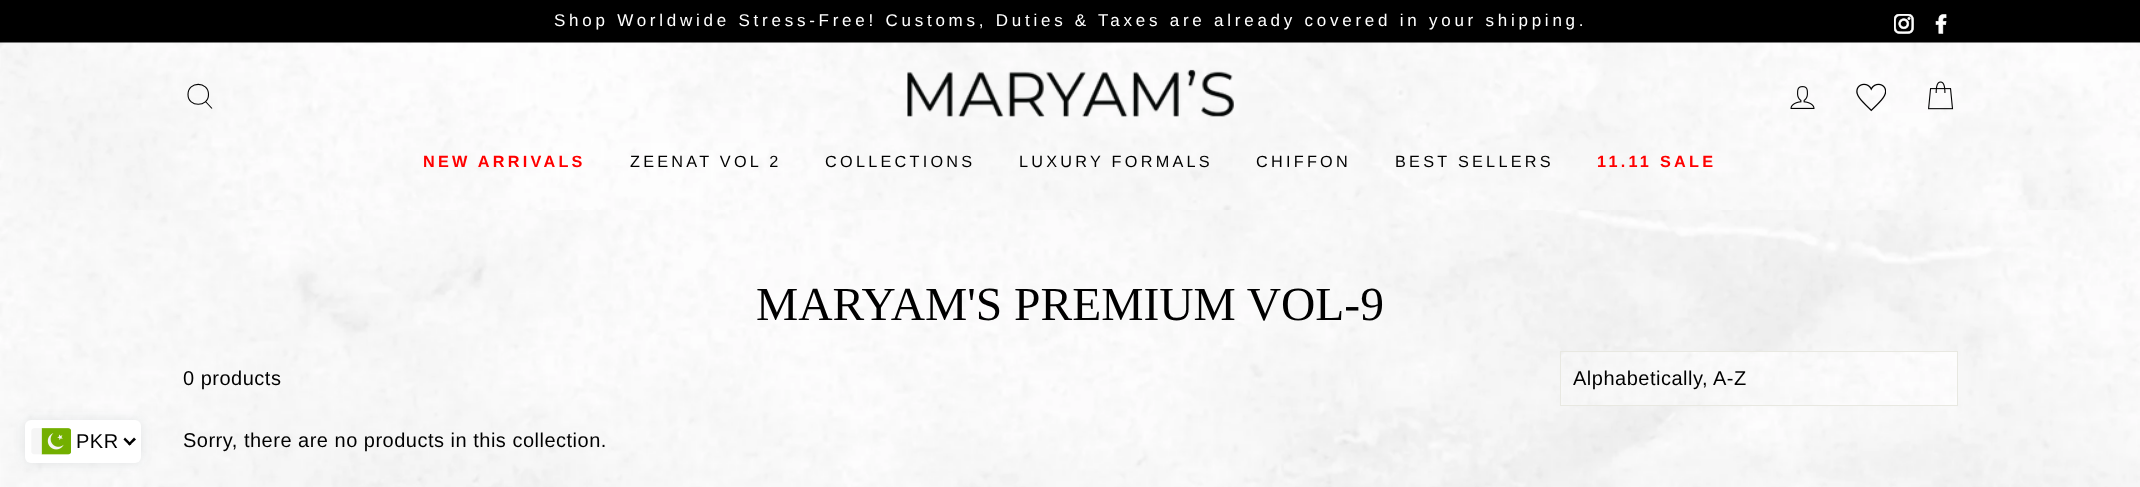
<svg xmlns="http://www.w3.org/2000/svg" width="2140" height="487">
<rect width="100%" height="100%" fill="#fff"/>
<image x="0" y="210" width="2140" height="277" href="media/1.png"/>
<rect x="25" y="420" width="116" height="43" rx="6" fill="#162d3d1a" filter="blur(6px)"/>
<rect x="25" y="420" width="116" height="43" rx="6" fill="#fff"/>
<image x="31" y="428" width="40" height="27" href="media/2.png"/>
<text x="76" y="448" style="font-family:Liberation Sans;font-size:20px;letter-spacing:0.5px;fill:#000">PKR</text>
<path d="M134 437.5l2 2l-6.5 6l-1.5-1.5z" fill="#000"/>
<path d="M125 437.5l6.5 6.5l-2 1.5l-6-6z" fill="#000"/>
<rect width="2140" height="43" fill="#000"/>
<text x="554" y="26" style="font-family:Liberation Sans;font-size:17px;letter-spacing:3.75px;fill:#fff">Shop Worldwide Stress-Free! Customs, Duties &amp; Taxes are already covered in your shipping.</text>
<image x="1894" y="14" width="20" height="20" href="media/3.png"/>
<image x="1935" y="14" width="12" height="20" href="media/4.png"/>
<rect y="43" width="2140" height="167" fill="#00000033" filter="blur(0.5px)"/>
<image x="0" y="42" width="2140" height="168" href="media/5.png"/>
<path d="M208.5 94.5c0 13-20.5 13-20.5 0c0-13.5 20.5-13.5 20.5 0zm3.5 14l-6.5-7" fill="none" stroke="#000" stroke-width="1.1"/>
<image x="907" y="69" width="327" height="48" href="media/6.png"/>
<image x="1790" y="86" width="25" height="23" href="media/7.png"/>
<image x="1856" y="83" width="30" height="29" href="media/8.png"/>
<image x="1928" y="81" width="26" height="29" href="media/9.png"/>
<text x="423" y="167" style="font-family:Liberation Sans;font-size:16.25px;font-weight:bold;letter-spacing:3.25px;fill:#f00">NEW ARRIVALS</text>
<text x="630" y="167" style="font-family:Liberation Sans;font-size:16.25px;letter-spacing:3.25px;fill:#000">ZEENAT VOL 2</text>
<text x="825" y="167" style="font-family:Liberation Sans;font-size:16.25px;letter-spacing:3.25px;fill:#000">COLLECTIONS</text>
<text x="1019" y="167" style="font-family:Liberation Sans;font-size:16.25px;letter-spacing:3.25px;fill:#000">LUXURY FORMALS</text>
<text x="1256" y="167" style="font-family:Liberation Sans;font-size:16.25px;letter-spacing:3.25px;fill:#000">CHIFFON</text>
<text x="1395" y="167" style="font-family:Liberation Sans;font-size:16.25px;letter-spacing:3.25px;fill:#000">BEST SELLERS</text>
<text x="1597" y="167" style="font-family:Liberation Sans;font-size:16.25px;font-weight:bold;letter-spacing:3.25px;fill:#f00">11.11 SALE</text>
<text x="756" y="320" style="font-family:Liberation Serif;font-size:47.5px;fill:#000">MARYAM'S PREMIUM VOL-9</text>
<text x="183" y="385" style="font-family:Liberation Sans;font-size:20px;letter-spacing:0.5px;fill:#000">0 products</text>
<image x="1561" y="352" width="396" height="53" href="media/10.png"/>
<rect x="1560.5" y="351.5" width="397" height="54" fill="none" stroke="#e8e8e1"/>
<text x="1573" y="385" style="font-family:Liberation Sans;font-size:20px;letter-spacing:0.5px;fill:#000">Alphabetically, A-Z</text>
<text x="183" y="447" style="font-family:Liberation Sans;font-size:20px;letter-spacing:0.5px;fill:#000">Sorry, there are no products in this collection.</text>
</svg>
